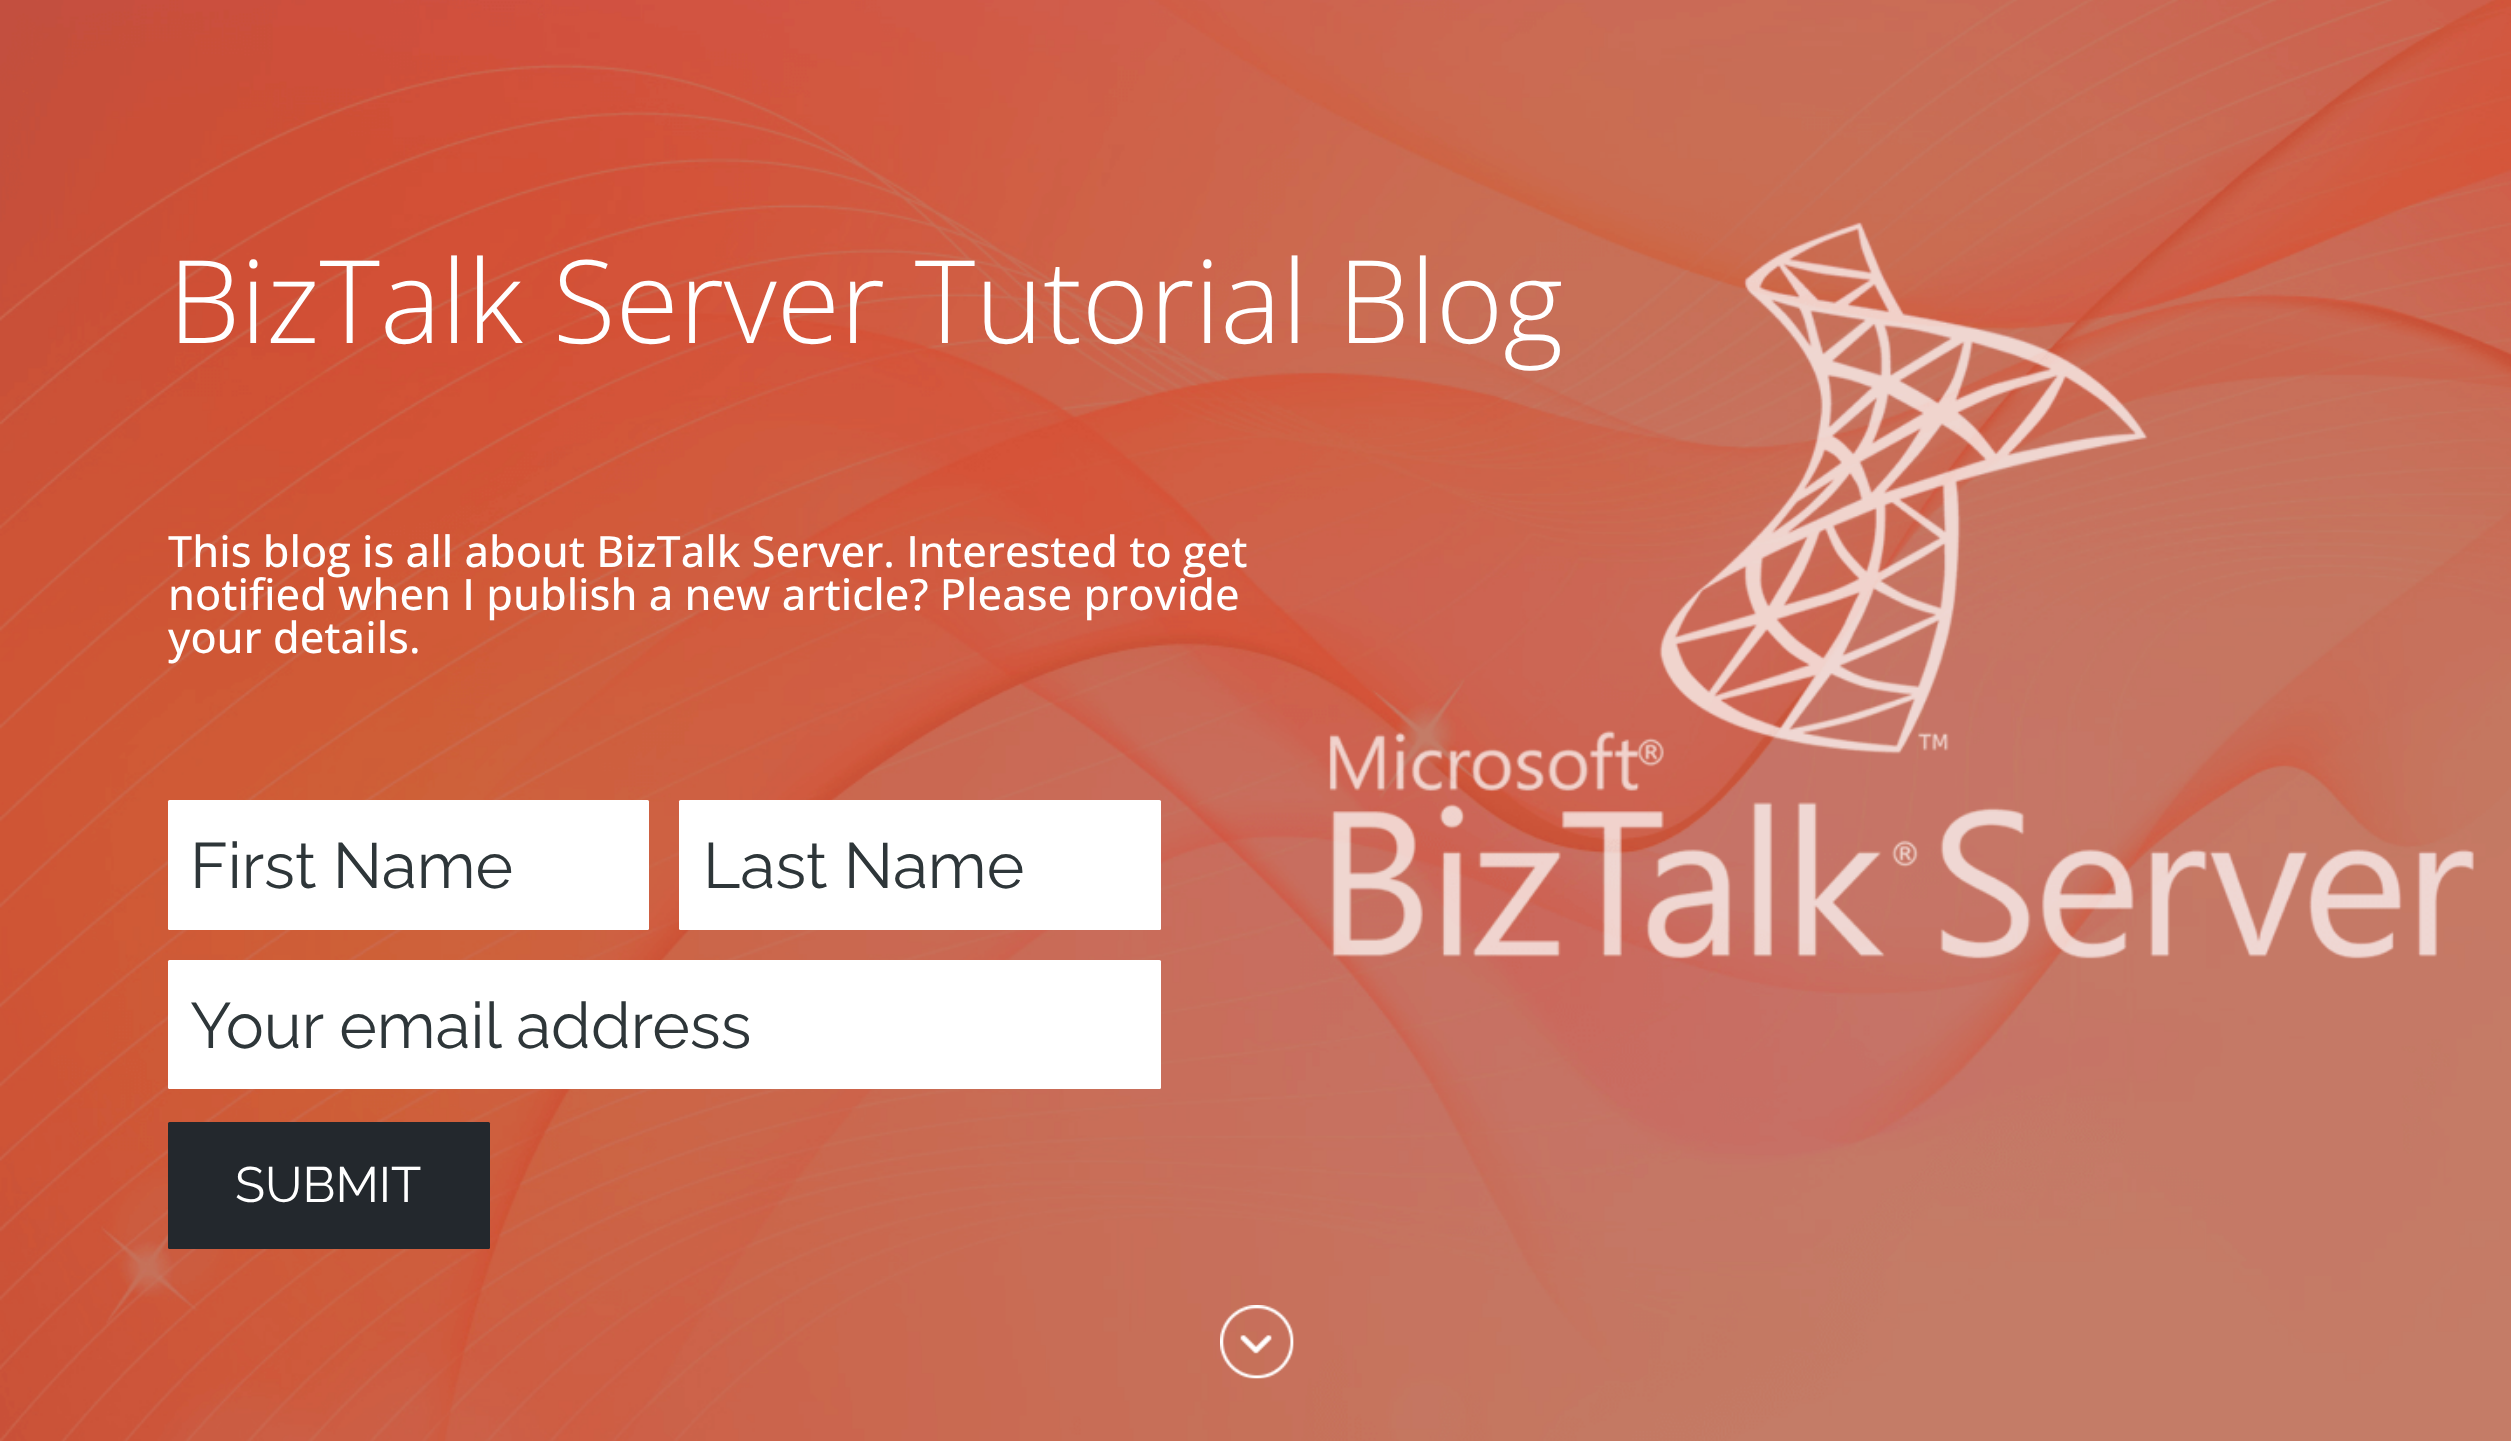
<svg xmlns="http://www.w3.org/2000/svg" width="2511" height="1441">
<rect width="100%" height="100%" fill="#fff"/>
<image x="0" y="0" width="2511" height="1441" href="media/1.png"/>
<text x="168" y="343" style="font-family:Open Sans;font-size:115.25px;font-weight:300;fill:#fff">BizTalk Server Tutorial Blog</text>
<text x="168" y="567" style="font-family:Open Sans;font-size:43.25px;font-weight:500;fill:#fff">This blog is all about BizTalk Server. Interested to get</text>
<text x="168" y="610" style="font-family:Open Sans;font-size:43.25px;font-weight:500;fill:#fff">notified when I publish a new article? Please provide</text>
<text x="168" y="653" style="font-family:Open Sans;font-size:43.25px;font-weight:500;fill:#fff">your details.</text>
<rect x="168" y="800" width="481" height="130" rx="1.5" fill="#fff"/>
<text x="190" y="888" style="font-family:Raleway;font-size:64px;fill:#2e3639">First Name</text>
<rect x="679" y="800" width="482" height="130" rx="1.5" fill="#fff"/>
<text x="703" y="888" style="font-family:Raleway;font-size:64px;fill:#2e3639">Last Name</text>
<rect x="168" y="960" width="993" height="129" rx="1.5" fill="#fff"/>
<text x="190" y="1048" style="font-family:Raleway;font-size:64px;fill:#2e3639">Your email address</text>
<rect x="168" y="1122" width="322" height="127" rx="1.5" fill="#23282d"/>
<text x="235" y="1202" style="font-family:Raleway;font-size:49.5px;fill:#fff">SUBMIT</text>
<image x="1220" y="1305" width="74" height="74" href="media/2.png"/>
</svg>
